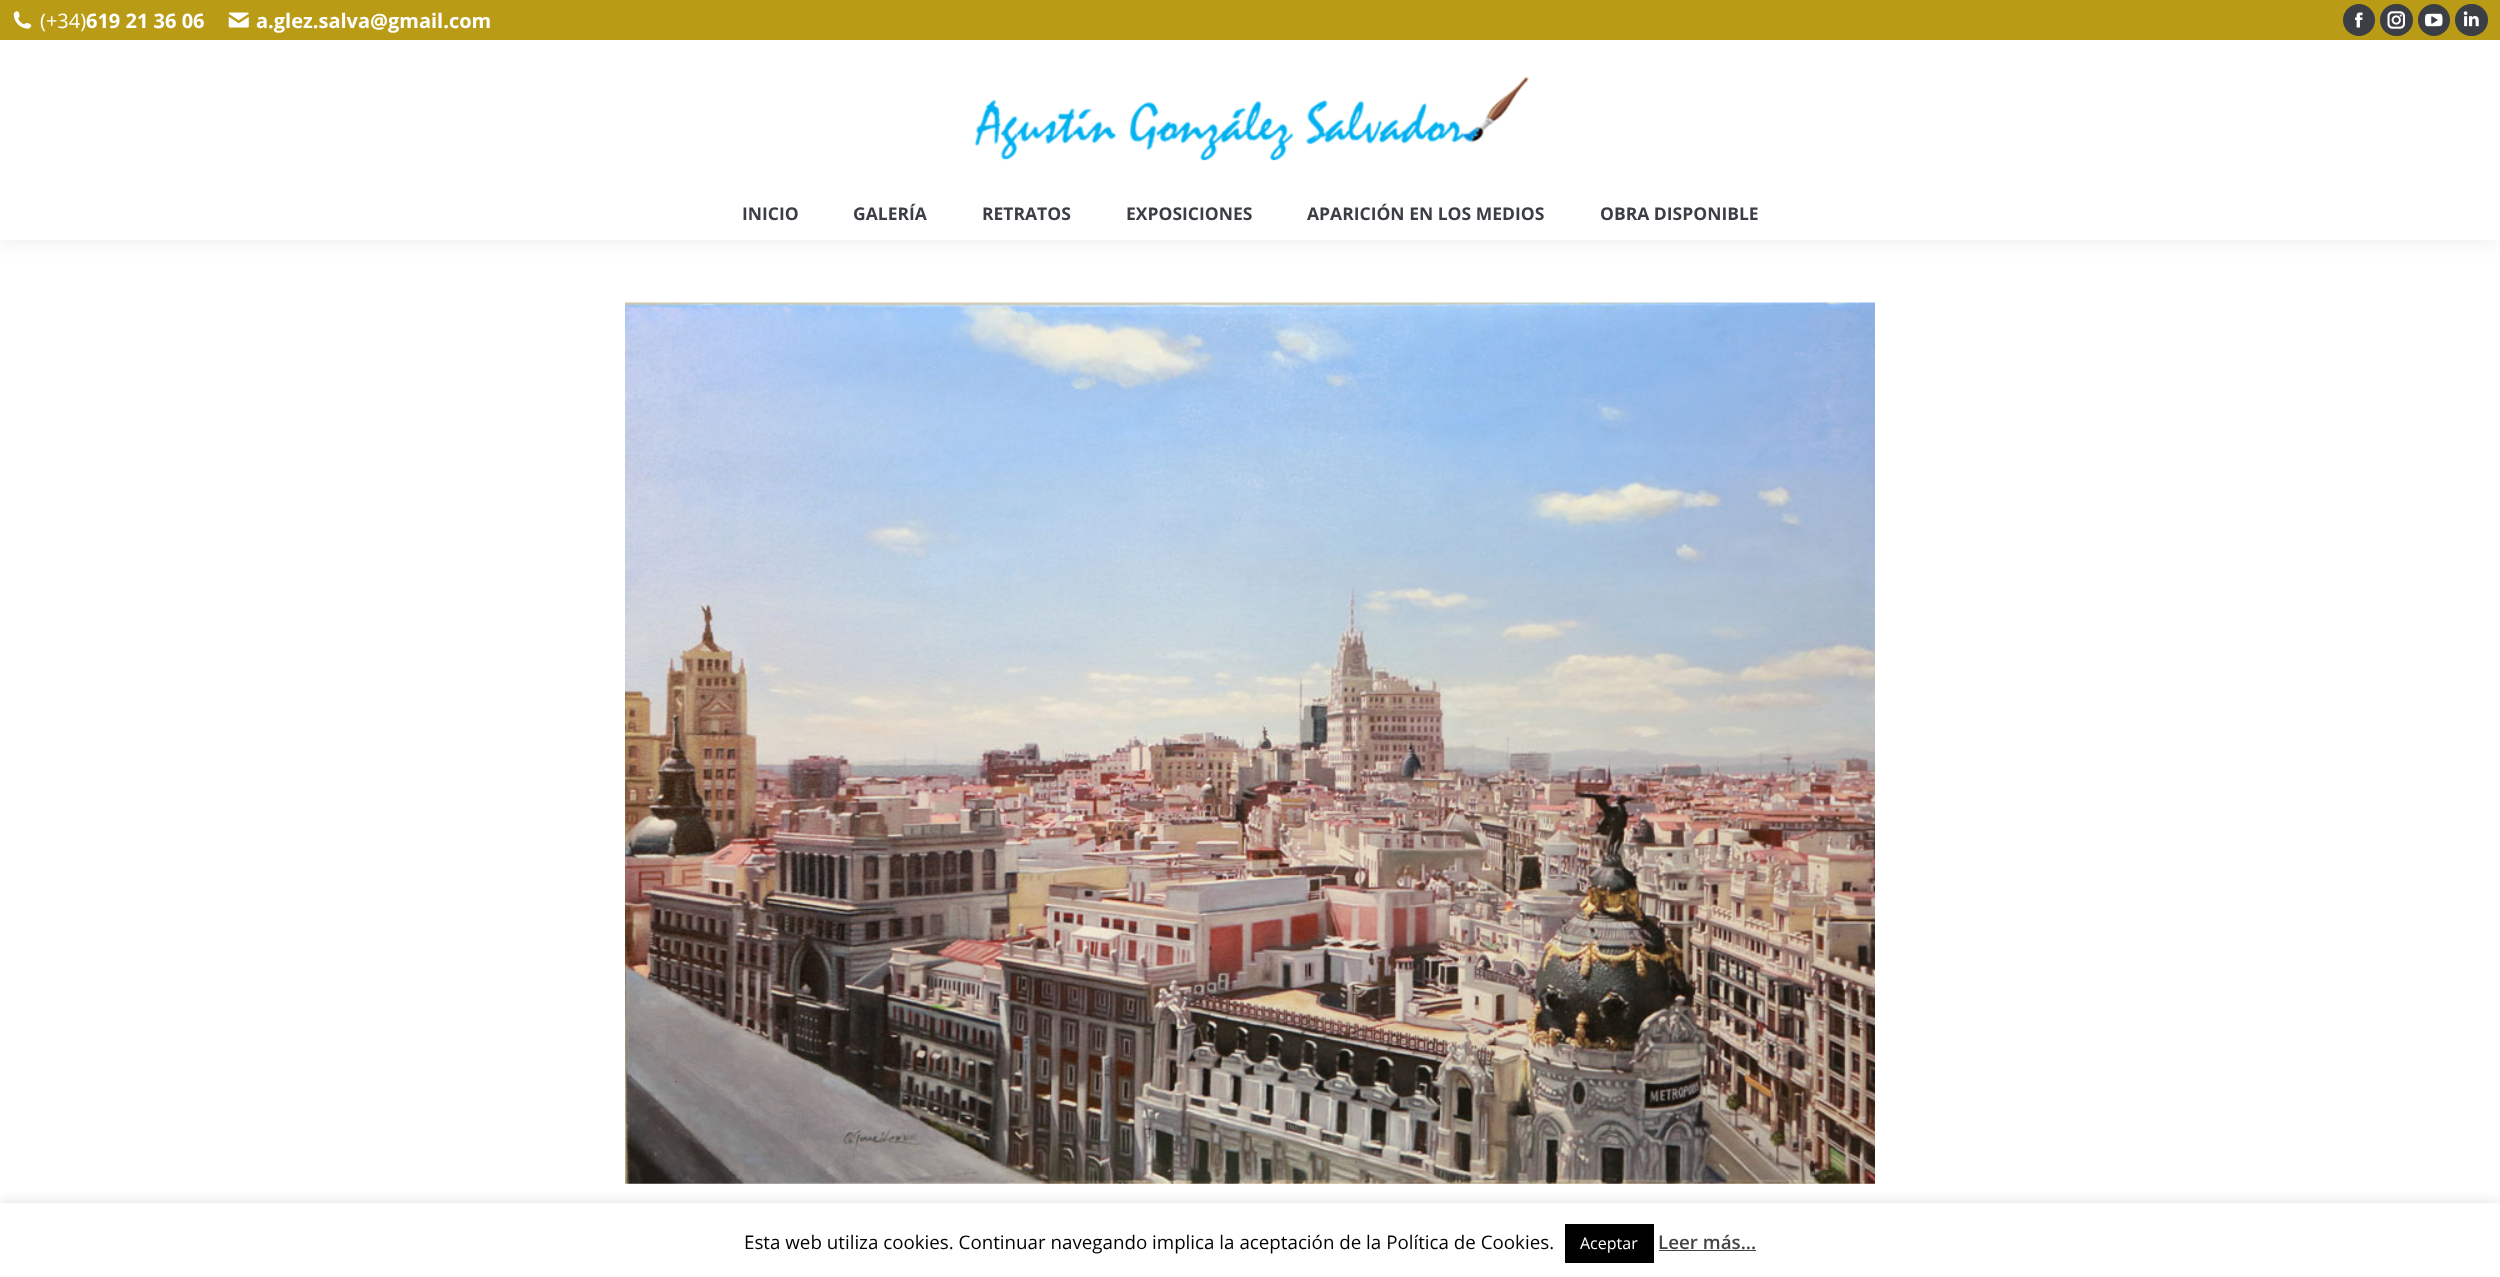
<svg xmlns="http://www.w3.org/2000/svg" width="2500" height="1277">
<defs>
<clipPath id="clip1"><rect x="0" y="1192" width="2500" height="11"/></clipPath>
</defs>
<rect width="100%" height="100%" fill="#fff"/>
<rect x="-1" y="-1" width="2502" height="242" fill="#00000012" filter="blur(9.5px)"/>
<rect y="40" width="2500" height="200" fill="#fff"/>
<rect width="2500" height="40" fill="#b99b16"/>
<image x="13" y="11" width="19" height="18" href="media/1.png"/>
<text x="40" y="28" style="font-family:Open Sans;font-size:20px;fill:#fff">(+34)</text>
<text x="86" y="28" style="font-family:Open Sans;font-size:20px;font-weight:bold;fill:#fff">619 21 36 06</text>
<image x="228" y="12" width="21" height="16" href="media/2.png"/>
<text x="256" y="28" style="font-family:Open Sans;font-size:20px;font-weight:bold;fill:#fff">a.glez.salva@gmail.com</text>
<circle cx="2359" cy="20" r="16" fill="#3c3e45"/>
<image x="2355" y="12" width="8" height="16" href="media/3.png"/>
<rect x="2380" y="4" width="33" height="32" rx="16" fill="#3c3e45"/>
<image x="2387" y="11" width="18" height="18" href="media/4.png"/>
<circle cx="2434" cy="20" r="16" fill="#3c3e45"/>
<image x="2425" y="13" width="18" height="14" href="media/5.png"/>
<rect x="2455" y="4" width="33" height="32" rx="16" fill="#3c3e45"/>
<image x="2463" y="11" width="16" height="16" href="media/6.png"/>
<image x="974" y="76" width="555" height="85" href="media/7.png"/>
<text x="742" y="220" style="font-family:Open Sans;font-size:17.5px;font-weight:bold;fill:#3c3e45">INICIO</text>
<text x="853" y="220" style="font-family:Open Sans;font-size:17.5px;font-weight:bold;fill:#3c3e45">GALERÍA</text>
<text x="982" y="220" style="font-family:Open Sans;font-size:17.5px;font-weight:bold;fill:#3c3e45">RETRATOS</text>
<text x="1126" y="220" style="font-family:Open Sans;font-size:17.5px;font-weight:bold;fill:#3c3e45">EXPOSICIONES</text>
<text x="1307" y="220" style="font-family:Open Sans;font-size:17.5px;font-weight:bold;fill:#3c3e45">APARICIÓN EN LOS MEDIOS</text>
<text x="1600" y="220" style="font-family:Open Sans;font-size:17.5px;font-weight:bold;fill:#3c3e45">OBRA DISPONIBLE</text>
<image x="625" y="302" width="1250" height="882" href="media/8.png"/>
<g clip-path="url(#clip1)">
<rect y="1201" width="2500" height="75" fill="#acabab4d" filter="blur(6px)"/>
</g>
<text x="744" y="1249" style="font-family:Open Sans;font-size:18.75px;fill:#000">Esta web utiliza cookies. Continuar navegando implica la aceptación de la Política de Cookies.</text>
<rect x="1565" y="1224" width="89" height="39" fill="#000"/>
<text x="1580" y="1249" style="font-family:Open Sans;font-size:16px;fill:#fff">Aceptar</text>
<text x="1658" y="1249" style="font-family:Open Sans;font-size:18.75px;font-weight:600;fill:#444">Leer más...</text>
<rect x="1659" y="1250" width="97" height="1" fill="#444"/>
</svg>
